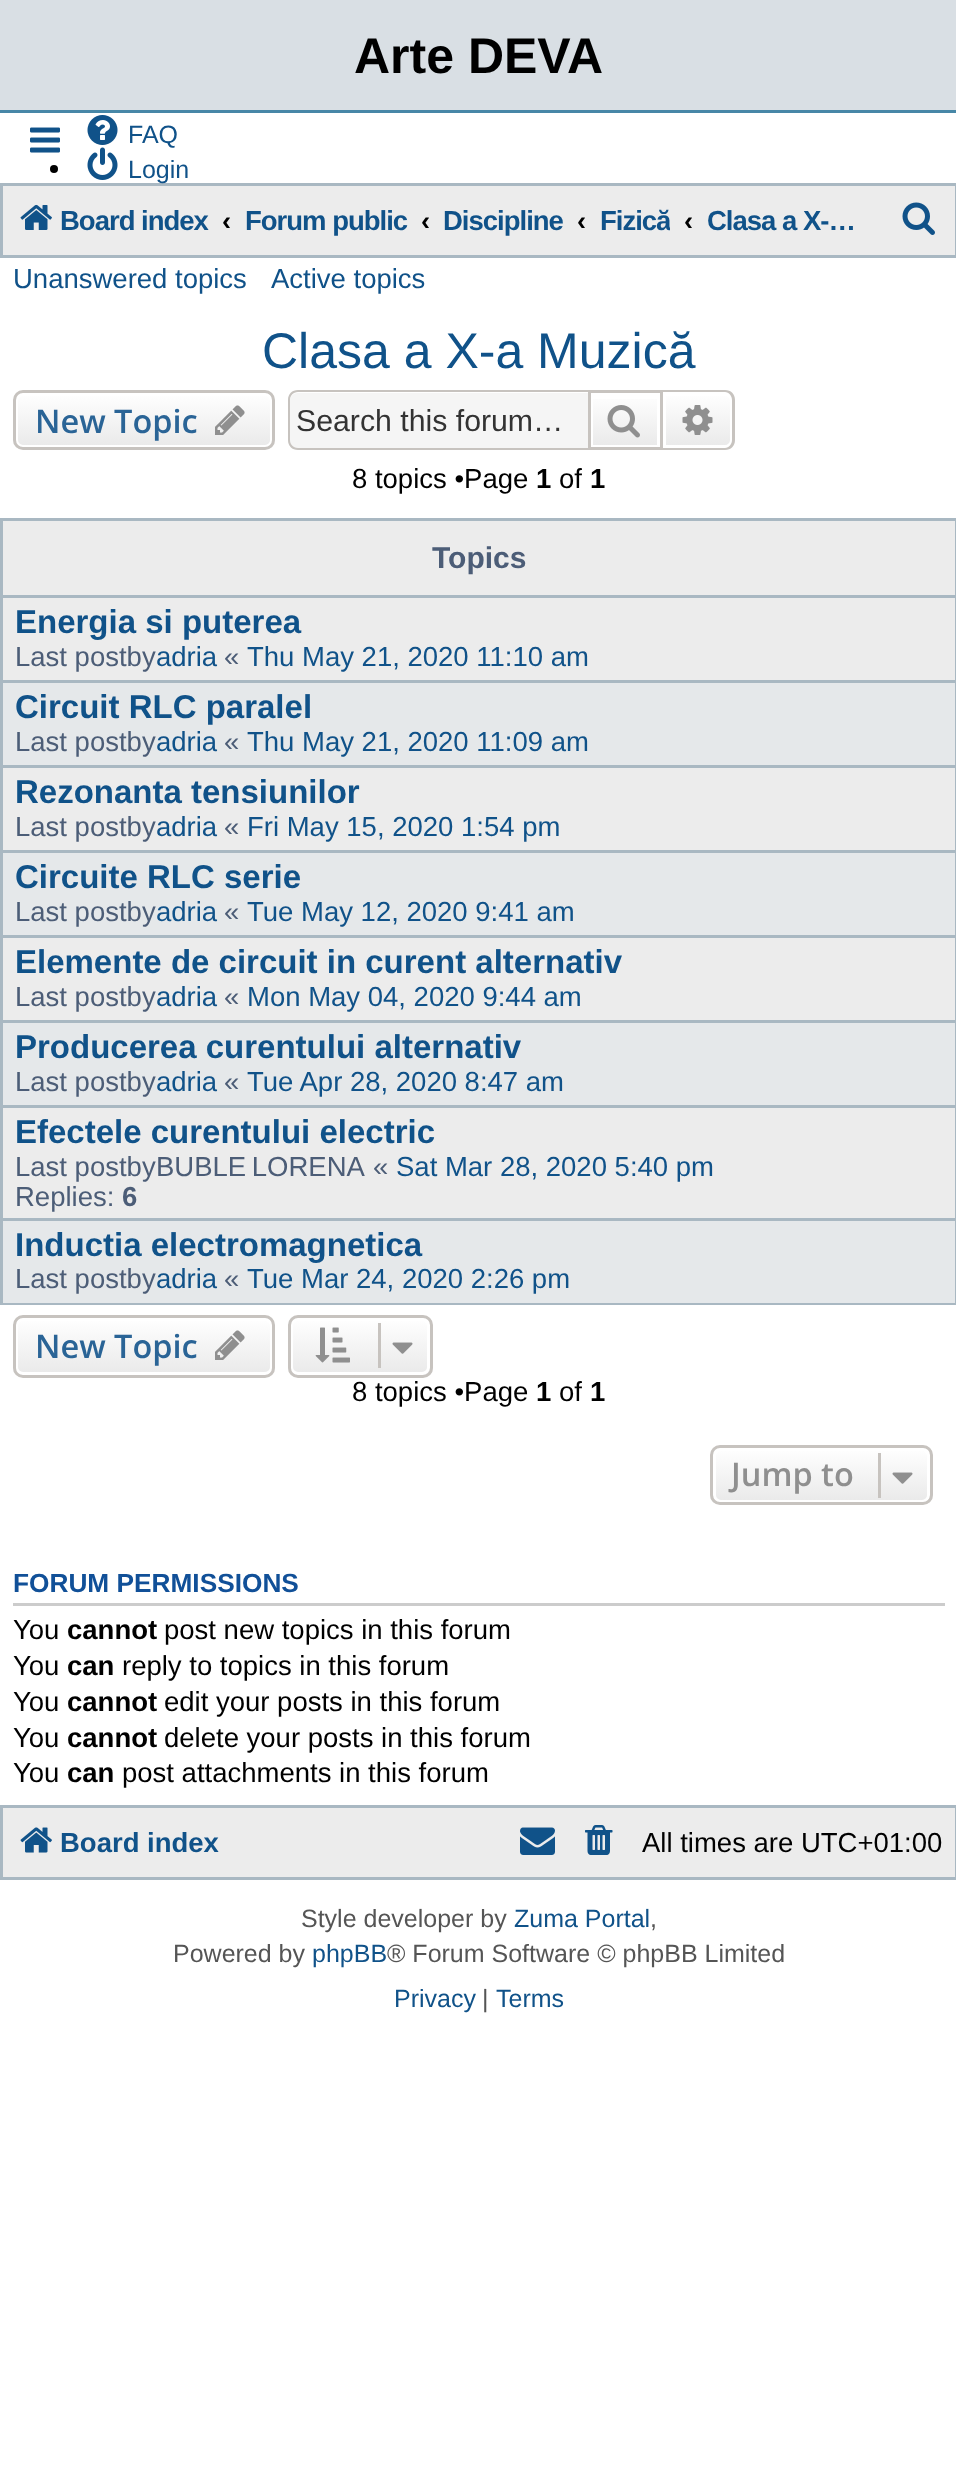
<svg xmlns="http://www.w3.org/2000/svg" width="956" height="2484">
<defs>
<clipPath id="clip1"><rect x="443" y="190" width="120" height="60"/></clipPath>
<clipPath id="clip2"><rect x="600" y="190" width="70" height="60"/></clipPath>
<clipPath id="clip3"><rect x="13" y="390" width="262" height="60" rx="10"/></clipPath>
<linearGradient id="g1" gradientUnits="userSpaceOnUse" x1="144" y1="393" x2="144" y2="448"><stop offset="0" stop-color="#fff"/><stop offset="1" stop-color="#e9e9e9"/></linearGradient>
<linearGradient id="g2" gradientUnits="userSpaceOnUse" x1="625" y1="393" x2="625" y2="448"><stop offset="0" stop-color="#fff"/><stop offset="1" stop-color="#e9e9e9"/></linearGradient>
<linearGradient id="g3" gradientUnits="userSpaceOnUse" x1="698" y1="393" x2="698" y2="448"><stop offset="0" stop-color="#fff"/><stop offset="1" stop-color="#e9e9e9"/></linearGradient>
<clipPath id="clip4"><rect x="13" y="1315" width="262" height="63" rx="10"/></clipPath>
<linearGradient id="g4" gradientUnits="userSpaceOnUse" x1="144" y1="1318" x2="144" y2="1375"><stop offset="0" stop-color="#fff"/><stop offset="1" stop-color="#e9e9e9"/></linearGradient>
<clipPath id="clip5"><rect x="288" y="1315" width="145" height="63" rx="10"/></clipPath>
<linearGradient id="g5" gradientUnits="userSpaceOnUse" x1="360" y1="1318" x2="360" y2="1375"><stop offset="0" stop-color="#fff"/><stop offset="1" stop-color="#e9e9e9"/></linearGradient>
<clipPath id="clip6"><rect x="710" y="1445" width="223" height="60" rx="10"/></clipPath>
<linearGradient id="g6" gradientUnits="userSpaceOnUse" x1="821" y1="1448" x2="821" y2="1503"><stop offset="0" stop-color="#fff"/><stop offset="1" stop-color="#e9e9e9"/></linearGradient>
</defs>
<rect width="100%" height="100%" fill="#fff"/>
<rect width="956" height="110" fill="#d9dfe4"/>
<rect y="110" width="956" height="3" fill="#4787a7"/>
<text x="354" y="73" style="font-family:Liberation Sans;font-size:50px;font-weight:bold;fill:#000">Arte DEVA</text>
<image x="30" y="127" width="30" height="26" href="media/1.png"/>
<image x="87" y="115" width="31" height="30" href="media/2.png"/>
<text x="128" y="143" style="font-family:Liberation Sans;font-size:25px;fill:#105289">FAQ</text>
<circle cx="54" cy="169" r="4" fill="#000"/>
<image x="87" y="147" width="31" height="33" href="media/3.png"/>
<rect x="1.5" y="184.5" width="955" height="72" fill="#ececec" stroke="#a9b8c2" stroke-width="3"/>
<text x="128" y="178" style="font-family:Liberation Sans;font-size:25px;fill:#105289">Login</text>
<image x="20" y="204" width="32" height="26" href="media/4.png"/>
<text x="60" y="230" style="font-family:Liberation Sans;font-size:27.5px;font-weight:bold;letter-spacing:-1px;fill:#105289">Board index</text>
<text x="222" y="230" style="font-family:Liberation Sans;font-size:27.5px;font-weight:bold;fill:#000">‹</text>
<text x="245" y="230" style="font-family:Liberation Sans;font-size:27.5px;font-weight:bold;letter-spacing:-1px;fill:#105289">Forum public</text>
<text x="421" y="230" style="font-family:Liberation Sans;font-size:27.5px;font-weight:bold;fill:#000">‹</text>
<g clip-path="url(#clip1)">
<text x="443" y="230" style="font-family:Liberation Sans;font-size:27.5px;font-weight:bold;letter-spacing:-1px;fill:#105289">Discipline</text>
</g>
<text x="577" y="230" style="font-family:Liberation Sans;font-size:27.5px;font-weight:bold;fill:#000">‹</text>
<g clip-path="url(#clip2)">
<text x="600" y="230" style="font-family:Liberation Sans;font-size:27.5px;font-weight:bold;letter-spacing:-1px;fill:#105289">Fizică</text>
</g>
<text x="684" y="230" style="font-family:Liberation Sans;font-size:27.5px;font-weight:bold;fill:#000">‹</text>
<text x="707" y="230" style="font-family:Liberation Sans;font-size:27.5px;font-weight:bold;letter-spacing:-1px;fill:#105289">Clasa a X-…</text>
<image x="902" y="202" width="33" height="33" href="media/5.png"/>
<text x="13" y="288" style="font-family:Liberation Sans;font-size:27.5px;fill:#105289">Unanswered topics</text>
<text x="271" y="288" style="font-family:Liberation Sans;font-size:27.5px;fill:#105289">Active topics</text>
<text x="262" y="368" style="font-family:Liberation Sans;font-size:50px;fill:#105289">Clasa a X-a Muzică</text>
<g clip-path="url(#clip3)">
<rect x="13" y="393" width="262" height="55" fill="url(#g1)"/>
</g>
<rect x="16.5" y="394.5" width="255" height="52" rx="6.5" fill="none" stroke="#fff" stroke-width="3"/>
<rect x="14.5" y="391.5" width="259" height="57" rx="8.5" fill="none" stroke="#c7c3bf" stroke-width="3"/>
<text x="35" y="433" style="font-family:Open Sans;font-size:32.5px;font-weight:600;fill:#2a6496">New Topic</text>
<image x="215" y="405" width="30" height="30" href="media/6.png"/>
<path d="M298 393h290v55h-290c-4.5 0-8-3.5-8-8v-39c0-4.5 3.5-8 8-8z" fill="#f5f5f5"/>
<path d="M298 390h290v60h-290c-6 0-10-4-10-10v-40c0-6 4-10 10-10zm0 2h290v56h-290c-5 0-8-4-8-8v-40c0-4 3-8 8-8z" fill="#c7c3bf" fill-rule="evenodd"/>
<text x="296" y="431" style="font-family:Liberation Sans;font-size:30.25px;fill:#333">Search this forum…</text>
<rect x="593" y="399" width="64" height="46" fill="url(#g2)"/>
<rect x="589.5" y="391.5" width="72" height="57" fill="none" stroke="#c7c3bf" stroke-width="3"/>
<image x="607" y="405" width="33" height="33" href="media/7.png"/>
<path d="M664.5 394.5h60.5c3.5 0 6.5 3 6.5 6.5v39c0 3.5-3 6.5-6.5 6.5h-60.5z" fill="url(#g3)" stroke="#fff" stroke-width="3"/>
<path d="M662 390h63c6 0 10 4 10 10v40c0 6-4 10-10 10h-63zm0 2h63c4 0 7 4 7 8v40c0 4-3 8-7 8h-63z" fill="#c7c3bf" fill-rule="evenodd"/>
<image x="682" y="405" width="31" height="30" href="media/8.png"/>
<text x="352" y="488" style="font-family:Liberation Sans;font-size:27.5px;fill:#000">8 topics •Page</text>
<text x="536" y="488" style="font-family:Liberation Sans;font-size:27.5px;font-weight:bold;fill:#000">1</text>
<text x="559" y="488" style="font-family:Liberation Sans;font-size:27.5px;fill:#000">of</text>
<text x="590" y="488" style="font-family:Liberation Sans;font-size:27.5px;font-weight:bold;fill:#000">1</text>
<rect x="3" y="521" width="952" height="697" fill="#ececec"/>
<rect x="1.5" y="519.5" width="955" height="784" fill="none" stroke="#a9b8c2" stroke-width="3"/>
<text x="432" y="568" style="font-family:Liberation Sans;font-size:30px;font-weight:bold;fill:#4c5d77">Topics</text>
<rect x="3" y="595" width="952" height="3" fill="#a9b8c2"/>
<text x="15" y="633" style="font-family:Liberation Sans;font-size:33px;font-weight:bold;fill:#105289">Energia si puterea</text>
<text x="15" y="666" style="font-family:Liberation Sans;font-size:27.5px;fill:#4c5d77">Last postby</text>
<text x="156" y="666" style="font-family:Liberation Sans;font-size:27.5px;fill:#105289">adria</text>
<text x="224" y="666" style="font-family:Liberation Sans;font-size:27.5px;fill:#4c5d77">«</text>
<text x="247" y="666" style="font-family:Liberation Sans;font-size:27.5px;fill:#105289">Thu May 21, 2020 11:10 am</text>
<rect x="3" y="683" width="952" height="82" fill="#e5e8ea"/>
<rect x="3" y="680" width="952" height="3" fill="#a9b8c2"/>
<text x="15" y="718" style="font-family:Liberation Sans;font-size:33px;font-weight:bold;fill:#105289">Circuit RLC paralel</text>
<text x="15" y="751" style="font-family:Liberation Sans;font-size:27.5px;fill:#4c5d77">Last postby</text>
<text x="156" y="751" style="font-family:Liberation Sans;font-size:27.5px;fill:#105289">adria</text>
<text x="224" y="751" style="font-family:Liberation Sans;font-size:27.5px;fill:#4c5d77">«</text>
<text x="247" y="751" style="font-family:Liberation Sans;font-size:27.5px;fill:#105289">Thu May 21, 2020 11:09 am</text>
<rect x="3" y="765" width="952" height="3" fill="#a9b8c2"/>
<text x="15" y="803" style="font-family:Liberation Sans;font-size:33px;font-weight:bold;fill:#105289">Rezonanta tensiunilor</text>
<text x="15" y="836" style="font-family:Liberation Sans;font-size:27.5px;fill:#4c5d77">Last postby</text>
<text x="156" y="836" style="font-family:Liberation Sans;font-size:27.5px;fill:#105289">adria</text>
<text x="224" y="836" style="font-family:Liberation Sans;font-size:27.5px;fill:#4c5d77">«</text>
<text x="247" y="836" style="font-family:Liberation Sans;font-size:27.5px;fill:#105289">Fri May 15, 2020 1:54 pm</text>
<rect x="3" y="853" width="952" height="82" fill="#e5e8ea"/>
<rect x="3" y="850" width="952" height="3" fill="#a9b8c2"/>
<text x="15" y="888" style="font-family:Liberation Sans;font-size:33px;font-weight:bold;fill:#105289">Circuite RLC serie</text>
<text x="15" y="921" style="font-family:Liberation Sans;font-size:27.5px;fill:#4c5d77">Last postby</text>
<text x="156" y="921" style="font-family:Liberation Sans;font-size:27.5px;fill:#105289">adria</text>
<text x="224" y="921" style="font-family:Liberation Sans;font-size:27.5px;fill:#4c5d77">«</text>
<text x="247" y="921" style="font-family:Liberation Sans;font-size:27.5px;fill:#105289">Tue May 12, 2020 9:41 am</text>
<rect x="3" y="935" width="952" height="3" fill="#a9b8c2"/>
<text x="15" y="973" style="font-family:Liberation Sans;font-size:33px;font-weight:bold;fill:#105289">Elemente de circuit in curent alternativ</text>
<text x="15" y="1006" style="font-family:Liberation Sans;font-size:27.5px;fill:#4c5d77">Last postby</text>
<text x="156" y="1006" style="font-family:Liberation Sans;font-size:27.5px;fill:#105289">adria</text>
<text x="224" y="1006" style="font-family:Liberation Sans;font-size:27.5px;fill:#4c5d77">«</text>
<text x="247" y="1006" style="font-family:Liberation Sans;font-size:27.5px;fill:#105289">Mon May 04, 2020 9:44 am</text>
<rect x="3" y="1023" width="952" height="82" fill="#e5e8ea"/>
<rect x="3" y="1020" width="952" height="3" fill="#a9b8c2"/>
<text x="15" y="1058" style="font-family:Liberation Sans;font-size:33px;font-weight:bold;fill:#105289">Producerea curentului alternativ</text>
<text x="15" y="1091" style="font-family:Liberation Sans;font-size:27.5px;fill:#4c5d77">Last postby</text>
<text x="156" y="1091" style="font-family:Liberation Sans;font-size:27.5px;fill:#105289">adria</text>
<text x="224" y="1091" style="font-family:Liberation Sans;font-size:27.5px;fill:#4c5d77">«</text>
<text x="247" y="1091" style="font-family:Liberation Sans;font-size:27.5px;fill:#105289">Tue Apr 28, 2020 8:47 am</text>
<rect x="3" y="1105" width="952" height="3" fill="#a9b8c2"/>
<text x="15" y="1143" style="font-family:Liberation Sans;font-size:33px;font-weight:bold;fill:#105289">Efectele curentului electric</text>
<text x="15" y="1176" style="font-family:Liberation Sans;font-size:27.5px;fill:#4c5d77">Last postby</text>
<text x="156" y="1176" word-spacing="-2" style="font-family:Liberation Sans;font-size:27.5px;fill:#4c5d77">BUBLE LORENA</text>
<text x="373" y="1176" style="font-family:Liberation Sans;font-size:27.5px;fill:#4c5d77">«</text>
<text x="396" y="1176" style="font-family:Liberation Sans;font-size:27.5px;fill:#105289">Sat Mar 28, 2020 5:40 pm</text>
<text x="15" y="1206" style="font-family:Liberation Sans;font-size:27.5px;fill:#4c5d77">Replies:</text>
<text x="122" y="1206" style="font-family:Liberation Sans;font-size:27.5px;font-weight:bold;fill:#4c5d77">6</text>
<rect x="3" y="1221" width="952" height="82" fill="#e5e8ea"/>
<rect x="3" y="1218" width="952" height="3" fill="#a9b8c2"/>
<text x="15" y="1256" style="font-family:Liberation Sans;font-size:33px;font-weight:bold;fill:#105289">Inductia electromagnetica</text>
<text x="15" y="1288" style="font-family:Liberation Sans;font-size:27.5px;fill:#4c5d77">Last postby</text>
<text x="156" y="1288" style="font-family:Liberation Sans;font-size:27.5px;fill:#105289">adria</text>
<text x="224" y="1288" style="font-family:Liberation Sans;font-size:27.5px;fill:#4c5d77">«</text>
<text x="247" y="1288" style="font-family:Liberation Sans;font-size:27.5px;fill:#105289">Tue Mar 24, 2020 2:26 pm</text>
<g clip-path="url(#clip4)">
<rect x="13" y="1318" width="262" height="57" fill="url(#g4)"/>
</g>
<rect x="16.5" y="1319.5" width="255" height="54" rx="6.5" fill="none" stroke="#fff" stroke-width="3"/>
<rect x="14.5" y="1316.5" width="259" height="60" rx="8.5" fill="none" stroke="#c7c3bf" stroke-width="3"/>
<text x="35" y="1358" style="font-family:Open Sans;font-size:32.5px;font-weight:600;fill:#2a6496">New Topic</text>
<image x="215" y="1330" width="30" height="30" href="media/9.png"/>
<g clip-path="url(#clip5)">
<rect x="288" y="1318" width="145" height="57" fill="url(#g5)"/>
</g>
<rect x="291.5" y="1319.5" width="137" height="54" rx="6.5" fill="none" stroke="#fff" stroke-width="3"/>
<rect x="289.5" y="1316.5" width="142" height="60" rx="8.5" fill="none" stroke="#c7c3bf" stroke-width="3"/>
<image x="315" y="1327" width="35" height="36" href="media/10.png"/>
<rect x="378" y="1323" width="3" height="45" fill="#c7c3bf"/>
<image x="392" y="1342" width="21" height="12" href="media/11.png"/>
<text x="352" y="1401" style="font-family:Liberation Sans;font-size:27.5px;fill:#000">8 topics •Page</text>
<text x="536" y="1401" style="font-family:Liberation Sans;font-size:27.5px;font-weight:bold;fill:#000">1</text>
<text x="559" y="1401" style="font-family:Liberation Sans;font-size:27.5px;fill:#000">of</text>
<text x="590" y="1401" style="font-family:Liberation Sans;font-size:27.5px;font-weight:bold;fill:#000">1</text>
<g clip-path="url(#clip6)">
<rect x="710" y="1448" width="223" height="55" fill="url(#g6)"/>
</g>
<rect x="714.5" y="1449.5" width="214" height="52" rx="6.5" fill="none" stroke="#fff" stroke-width="3"/>
<rect x="711.5" y="1446.5" width="220" height="57" rx="8.5" fill="none" stroke="#c7c3bf" stroke-width="3"/>
<text x="731" y="1486" style="font-family:Open Sans;font-size:32.5px;font-weight:600;fill:#8f8f8f">Jump to</text>
<rect x="878" y="1453" width="3" height="45" fill="#c7c3bf"/>
<image x="892" y="1472" width="21" height="12" href="media/12.png"/>
<rect x="13" y="1603" width="932" height="3" fill="#ccc"/>
<text x="13" y="1592" style="font-family:Liberation Sans;font-size:26.25px;font-weight:bold;fill:#115098">FORUM PERMISSIONS</text>
<text x="13" y="1639" style="font-family:Liberation Sans;font-size:27.5px;fill:#000">You</text>
<text x="67" y="1639" style="font-family:Liberation Sans;font-size:27.5px;font-weight:bold;fill:#000">cannot</text>
<text x="164" y="1639" style="font-family:Liberation Sans;font-size:27.5px;fill:#000">post new topics in this forum</text>
<text x="13" y="1675" style="font-family:Liberation Sans;font-size:27.5px;fill:#000">You</text>
<text x="67" y="1675" style="font-family:Liberation Sans;font-size:27.5px;font-weight:bold;fill:#000">can</text>
<text x="122" y="1675" style="font-family:Liberation Sans;font-size:27.5px;fill:#000">reply to topics in this forum</text>
<text x="13" y="1711" style="font-family:Liberation Sans;font-size:27.5px;fill:#000">You</text>
<text x="67" y="1711" style="font-family:Liberation Sans;font-size:27.5px;font-weight:bold;fill:#000">cannot</text>
<text x="164" y="1711" style="font-family:Liberation Sans;font-size:27.5px;fill:#000">edit your posts in this forum</text>
<text x="13" y="1747" style="font-family:Liberation Sans;font-size:27.5px;fill:#000">You</text>
<text x="67" y="1747" style="font-family:Liberation Sans;font-size:27.5px;font-weight:bold;fill:#000">cannot</text>
<text x="164" y="1747" style="font-family:Liberation Sans;font-size:27.5px;fill:#000">delete your posts in this forum</text>
<text x="13" y="1782" style="font-family:Liberation Sans;font-size:27.5px;fill:#000">You</text>
<text x="67" y="1782" style="font-family:Liberation Sans;font-size:27.5px;font-weight:bold;fill:#000">can</text>
<text x="122" y="1782" style="font-family:Liberation Sans;font-size:27.5px;fill:#000">post attachments in this forum</text>
<rect x="1.5" y="1806.5" width="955" height="72" fill="#ececec" stroke="#a9b8c2" stroke-width="3"/>
<image x="20" y="1827" width="32" height="26" href="media/13.png"/>
<text x="60" y="1852" style="font-family:Liberation Sans;font-size:27.5px;font-weight:bold;fill:#105289">Board index</text>
<image x="520" y="1827" width="35" height="28" href="media/14.png"/>
<image x="585" y="1825" width="28" height="30" href="media/15.png"/>
<text x="642" y="1852" style="font-family:Liberation Sans;font-size:27.5px;fill:#000">All times are UTC+01:00</text>
<text x="301" y="1927" style="font-family:Liberation Sans;font-size:25px;fill:#555">Style developer by</text>
<text x="514" y="1927" style="font-family:Liberation Sans;font-size:25px;fill:#105289">Zuma Portal</text>
<text x="650" y="1927" style="font-family:Liberation Sans;font-size:25px;fill:#555">,</text>
<text x="173" y="1962" style="font-family:Liberation Sans;font-size:25px;fill:#555">Powered by</text>
<text x="312" y="1962" style="font-family:Liberation Sans;font-size:25px;fill:#105289">phpBB</text>
<text x="387" y="1962" style="font-family:Liberation Sans;font-size:25px;fill:#555">® Forum Software © phpBB Limited</text>
<text x="394" y="2007" style="font-family:Liberation Sans;font-size:25px;fill:#105289">Privacy</text>
<text x="482" y="2007" style="font-family:Liberation Sans;font-size:25px;fill:#555">|</text>
<text x="496" y="2007" style="font-family:Liberation Sans;font-size:25px;fill:#105289">Terms</text>
</svg>
